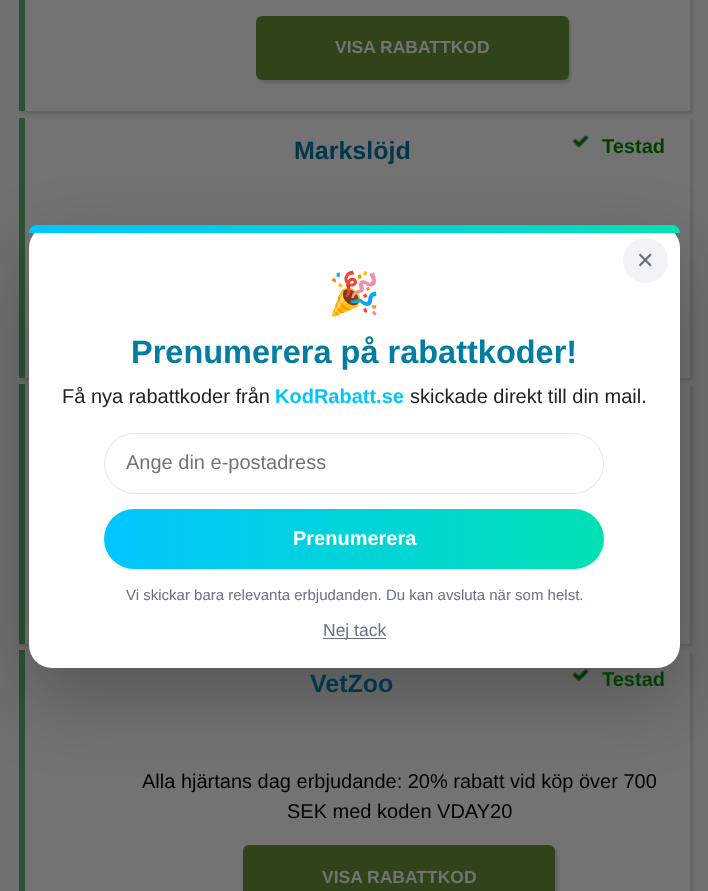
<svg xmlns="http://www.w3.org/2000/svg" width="708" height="891">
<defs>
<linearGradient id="g1" gradientUnits="userSpaceOnUse" x1="29" y1="229" x2="680" y2="229"><stop offset="0" stop-color="#00c6ff"/><stop offset="1" stop-color="#00e1b4"/></linearGradient>
<linearGradient id="g2" gradientUnits="userSpaceOnUse" x1="104" y1="539" x2="604" y2="539"><stop offset="0" stop-color="#00c6ff"/><stop offset="1" stop-color="#00e1b4"/></linearGradient>
</defs>
<rect width="100%" height="100%" fill="#707070"/>
<rect x="21" y="-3" width="672" height="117" fill="#636363" filter="blur(1px)"/>
<rect x="25" width="665" height="111" fill="#737373"/>
<rect x="19" width="6" height="111" fill="#2c5234"/>
<rect x="259" y="19" width="312" height="64" rx="6" fill="#636363" filter="blur(1px)"/>
<rect x="256" y="16" width="313" height="64" rx="6" fill="#2f4519"/>
<text x="335" y="53" style="font-family:Liberation Sans;font-size:17.5px;font-weight:bold;fill:#737373">VISA RABATTKOD</text>
<rect x="21" y="120" width="672" height="260" fill="#636363" filter="blur(1px)"/>
<rect x="25" y="118" width="665" height="260" fill="#737373"/>
<rect x="19" y="118" width="6" height="260" fill="#2c5234"/>
<text x="294" y="159" style="font-family:Liberation Sans;font-size:25px;font-weight:bold;fill:#00364c">Markslöjd</text>
<image x="572" y="134" width="17" height="14" href="media/1.png"/>
<text x="602" y="153" style="font-family:Liberation Sans;font-size:20px;font-weight:bold;fill:#003e00">Testad</text>
<rect x="21" y="386" width="672" height="260" fill="#636363" filter="blur(1px)"/>
<rect x="25" y="384" width="665" height="260" fill="#737373"/>
<rect x="19" y="384" width="6" height="260" fill="#2c5234"/>
<rect x="21" y="653" width="672" height="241" fill="#636363" filter="blur(1px)"/>
<rect x="25" y="650" width="665" height="241" fill="#737373"/>
<rect x="19" y="650" width="6" height="241" fill="#2c5234"/>
<image x="572" y="668" width="17" height="14" href="media/2.png"/>
<rect x="29" y="255" width="651" height="443" rx="23" fill="#00000040" filter="blur(37.5px)"/>
<rect x="29" y="225" width="651" height="443" rx="23" fill="#fff"/>
<path d="M37 225h635c4.5 0 8 3.5 8 8h-651c0-4.5 3.5-8 8-8z" fill="url(#g1)"/>
<circle cx="645.5" cy="260.5" r="22.5" fill="#f1f3f5"/>
<text x="636" y="268" style="font-family:DejaVu Sans;font-size:22px;fill:#667085">✕</text>
<text x="328" y="308" style="font-family:Noto Color Emoji;font-size:42px;fill:#000">🎉</text>
<text x="131" y="363" style="font-family:Liberation Sans;font-size:32.5px;font-weight:bold;fill:#007da0">Prenumerera på rabattkoder!</text>
<text x="62" y="403" style="font-family:Liberation Sans;font-size:20px;fill:#222">Få nya rabattkoder från</text>
<text x="275" y="403" style="font-family:Liberation Sans;font-size:20px;font-weight:bold;fill:#00c6ff">KodRabatt.se</text>
<text x="410" y="403" style="font-family:Liberation Sans;font-size:20px;fill:#222">skickade direkt till din mail.</text>
<rect x="104.5" y="433.5" width="499" height="60" rx="30" fill="none" stroke="#e5e7eb"/>
<text x="126" y="469" style="font-family:Liberation Sans;font-size:20px;fill:#737373">Ange din e-postadress</text>
<rect x="104" y="509" width="500" height="60" rx="30" fill="url(#g2)"/>
<text x="293" y="545" style="font-family:Liberation Sans;font-size:20px;font-weight:bold;fill:#fff">Prenumerera</text>
<text x="126" y="600" style="font-family:Liberation Sans;font-size:15px;fill:#667085">Vi skickar bara relevanta erbjudanden. Du kan avsluta när som helst.</text>
<rect x="323" y="638" width="63" height="1" fill="#667085"/>
<text x="323" y="636" style="font-family:Liberation Sans;font-size:17.5px;fill:#667085">Nej tack</text>
<text x="310" y="692" style="font-family:Liberation Sans;font-size:25px;font-weight:bold;fill:#00364c">VetZoo</text>
<text x="602" y="686" style="font-family:Liberation Sans;font-size:20px;font-weight:bold;fill:#003e00">Testad</text>
<text x="142" y="788" style="font-family:Liberation Sans;font-size:20px;fill:#000">Alla hjärtans dag erbjudande: 20% rabatt vid köp över 700</text>
<text x="287" y="818" style="font-family:Liberation Sans;font-size:20px;fill:#000">SEK med koden VDAY20</text>
<rect x="245" y="848" width="313" height="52" rx="6" fill="#636363" filter="blur(1px)"/>
<rect x="243" y="845" width="312" height="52" rx="6" fill="#2f4519"/>
<text x="322" y="883" style="font-family:Liberation Sans;font-size:17.5px;font-weight:bold;fill:#737373">VISA RABATTKOD</text>
</svg>
